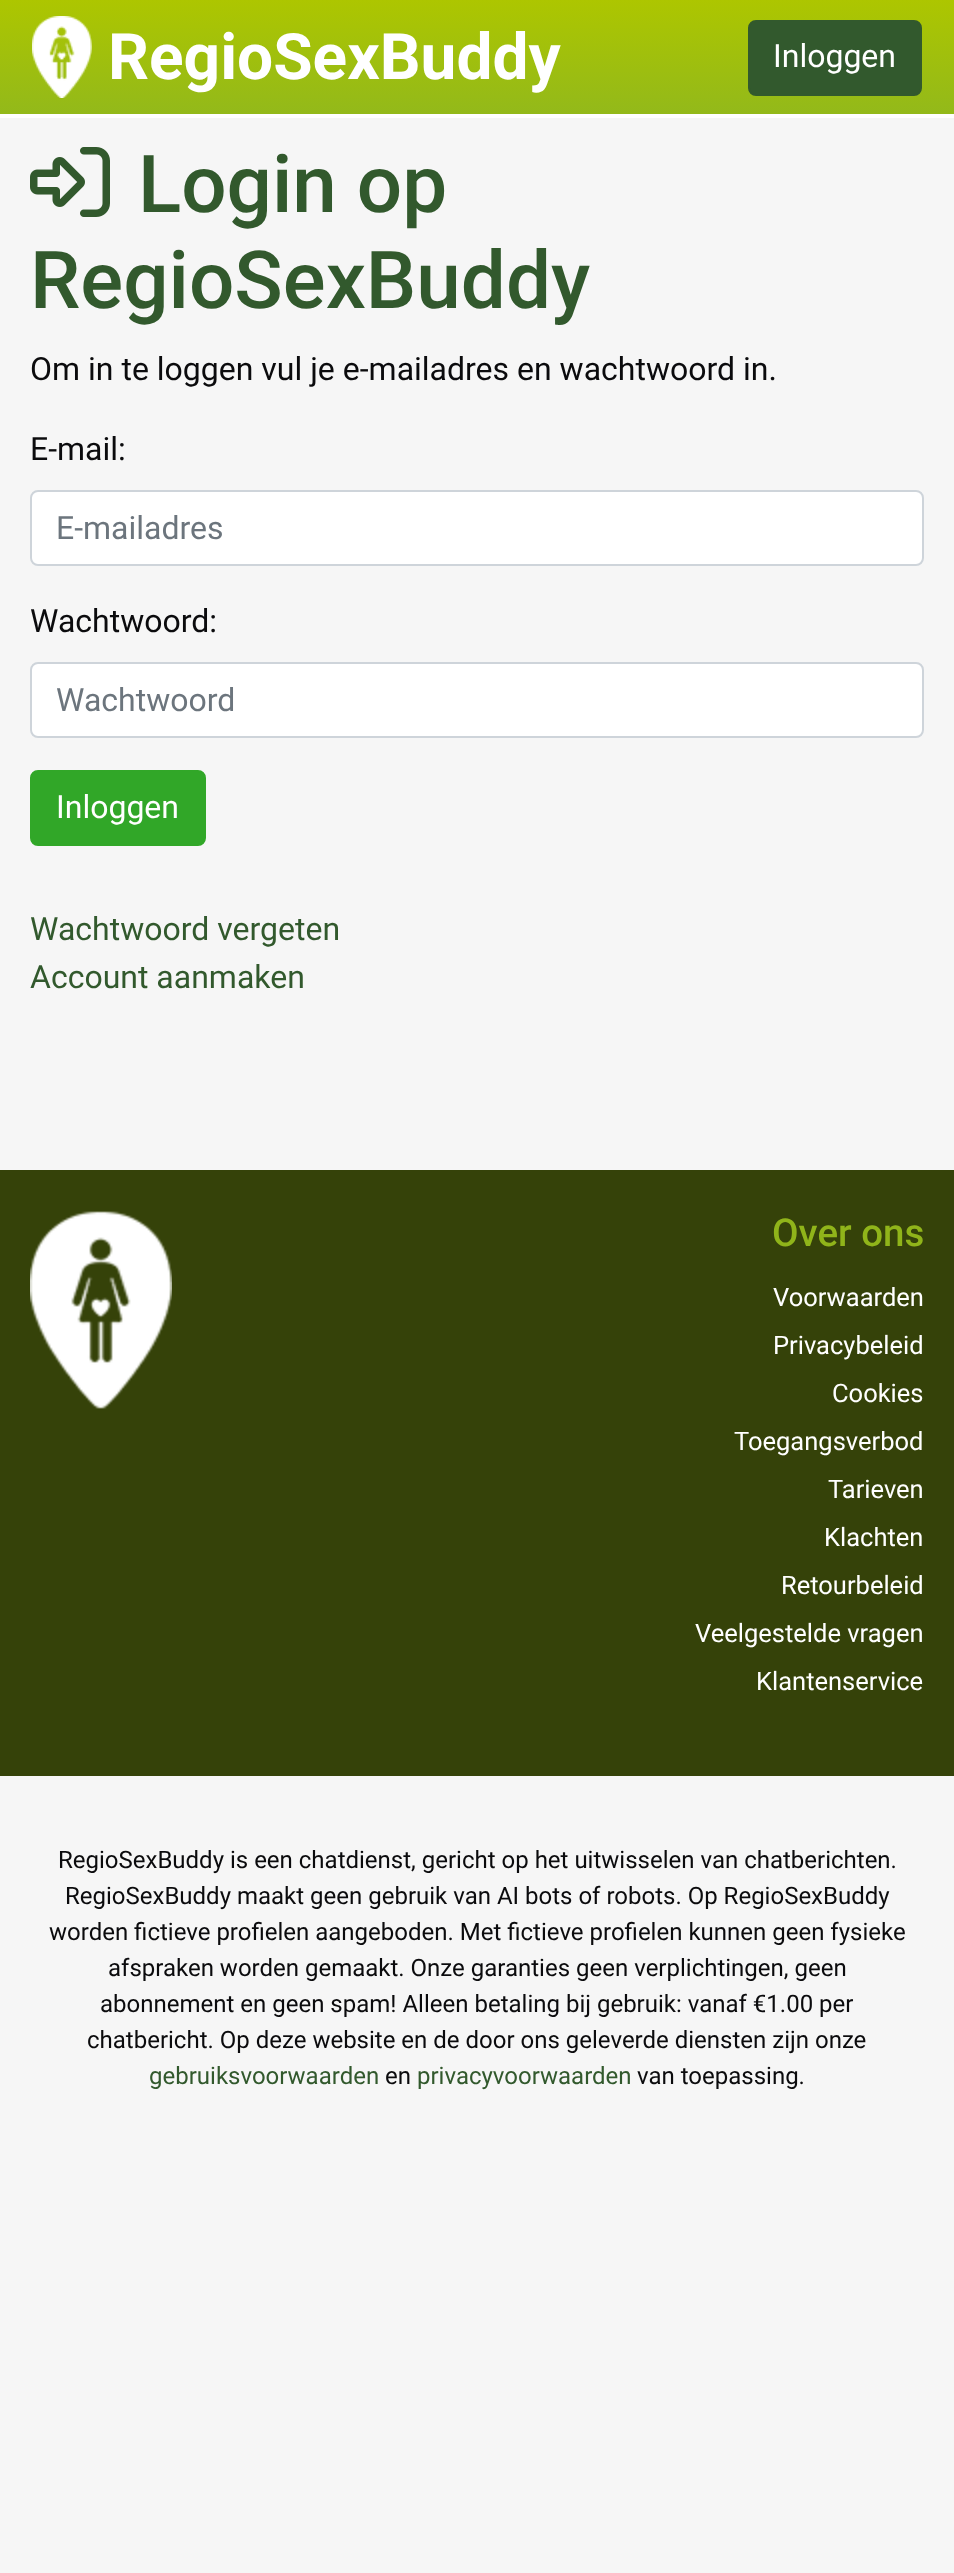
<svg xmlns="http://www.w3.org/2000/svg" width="954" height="2573">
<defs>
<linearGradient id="g1" gradientUnits="userSpaceOnUse" x1="477" y1="114" x2="477" y2="0"><stop offset="0" stop-color="#93b91a"/><stop offset="1" stop-color="#adc600"/></linearGradient>
</defs>
<rect width="100%" height="100%" fill="#f6f6f6"/>
<rect width="954" height="114" fill="url(#g1)"/>
<rect y="114" width="954" height="4" fill="#fff"/>
<image x="32" y="16" width="60" height="82" href="media/1.png"/>
<text x="108" y="79" style="font-family:Roboto;font-size:64px;font-weight:bold;fill:#fff">RegioSexBuddy</text>
<rect x="749" y="21" width="172" height="74" rx="7" fill="#32592d" stroke="#32592d" stroke-width="2"/>
<text x="773" y="67" style="font-family:Roboto;font-size:32px;fill:#fff">Inloggen</text>
<image x="30" y="147" width="80" height="70" href="media/2.png"/>
<text x="138" y="212" style="font-family:Roboto;font-size:80px;font-weight:500;fill:#32592d">Login op</text>
<text x="30" y="308" style="font-family:Roboto;font-size:80px;font-weight:500;fill:#32592d">RegioSexBuddy</text>
<text x="30" y="380" style="font-family:Roboto;font-size:32px;fill:#0b0b0d">Om in te loggen vul je e-mailadres en wachtwoord in.</text>
<text x="30" y="460" style="font-family:Roboto;font-size:32px;fill:#0b0b0d">E-mail:</text>
<rect x="31" y="491" width="892" height="74" rx="7" fill="#fff" stroke="#ced4da" stroke-width="2"/>
<text x="56" y="539" style="font-family:Roboto;font-size:32px;fill:#6c757d">E-mailadres</text>
<text x="30" y="632" style="font-family:Roboto;font-size:32px;fill:#0b0b0d">Wachtwoord:</text>
<rect x="31" y="663" width="892" height="74" rx="7" fill="#fff" stroke="#ced4da" stroke-width="2"/>
<text x="56" y="711" style="font-family:Roboto;font-size:32px;fill:#6c757d">Wachtwoord</text>
<rect x="31" y="771" width="174" height="74" rx="7" fill="#31a728" stroke="#31a728" stroke-width="2"/>
<text x="56" y="818" style="font-family:Roboto;font-size:32px;fill:#fff">Inloggen</text>
<text x="30" y="940" style="font-family:Roboto;font-size:32px;fill:#32592d">Wachtwoord vergeten</text>
<text x="30" y="988" style="font-family:Roboto;font-size:32px;fill:#32592d">Account aanmaken</text>
<rect y="1170" width="954" height="606" fill="#354209"/>
<image x="30" y="1211" width="142" height="198" href="media/3.png"/>
<text x="772" y="1246" style="font-family:Roboto;font-size:38.5px;font-weight:500;fill:#90b41a">Over ons</text>
<text x="773" y="1306" style="font-family:Roboto;font-size:25.5px;fill:#fff">Voorwaarden</text>
<text x="773" y="1354" style="font-family:Roboto;font-size:25.5px;fill:#fff">Privacybeleid</text>
<text x="832" y="1402" style="font-family:Roboto;font-size:25.5px;fill:#fff">Cookies</text>
<text x="734" y="1450" style="font-family:Roboto;font-size:25.5px;fill:#fff">Toegangsverbod</text>
<text x="828" y="1498" style="font-family:Roboto;font-size:25.5px;fill:#fff">Tarieven</text>
<text x="824" y="1546" style="font-family:Roboto;font-size:25.5px;fill:#fff">Klachten</text>
<text x="781" y="1594" style="font-family:Roboto;font-size:25.5px;fill:#fff">Retourbeleid</text>
<text x="695" y="1642" style="font-family:Roboto;font-size:25.5px;fill:#fff">Veelgestelde vragen</text>
<text x="756" y="1690" style="font-family:Roboto;font-size:25.5px;fill:#fff">Klantenservice</text>
<text x="58" y="1868" style="font-family:Roboto;font-size:24px;fill:#0b0b0d">RegioSexBuddy is een chatdienst, gericht op het uitwisselen van chatberichten.</text>
<text x="65" y="1904" style="font-family:Roboto;font-size:24px;fill:#0b0b0d">RegioSexBuddy maakt geen gebruik van AI bots of robots. Op RegioSexBuddy</text>
<text x="49" y="1940" style="font-family:Roboto;font-size:24px;fill:#0b0b0d">worden fictieve profielen aangeboden. Met fictieve profielen kunnen geen fysieke</text>
<text x="108" y="1976" style="font-family:Roboto;font-size:24px;fill:#0b0b0d">afspraken worden gemaakt. Onze garanties geen verplichtingen, geen</text>
<text x="100" y="2012" style="font-family:Roboto;font-size:24px;fill:#0b0b0d">abonnement en geen spam! Alleen betaling bij gebruik: vanaf €1.00 per</text>
<text x="87" y="2048" style="font-family:Roboto;font-size:24px;fill:#0b0b0d">chatbericht. Op deze website en de door ons geleverde diensten zijn onze</text>
<text x="149" y="2084" style="font-family:Roboto;font-size:24px;fill:#32592d">gebruiksvoorwaarden</text>
<text x="385" y="2084" style="font-family:Roboto;font-size:24px;fill:#0b0b0d">en</text>
<text x="417" y="2084" style="font-family:Roboto;font-size:24px;fill:#32592d">privacyvoorwaarden</text>
<text x="637" y="2084" style="font-family:Roboto;font-size:24px;fill:#0b0b0d">van toepassing.</text>
</svg>
